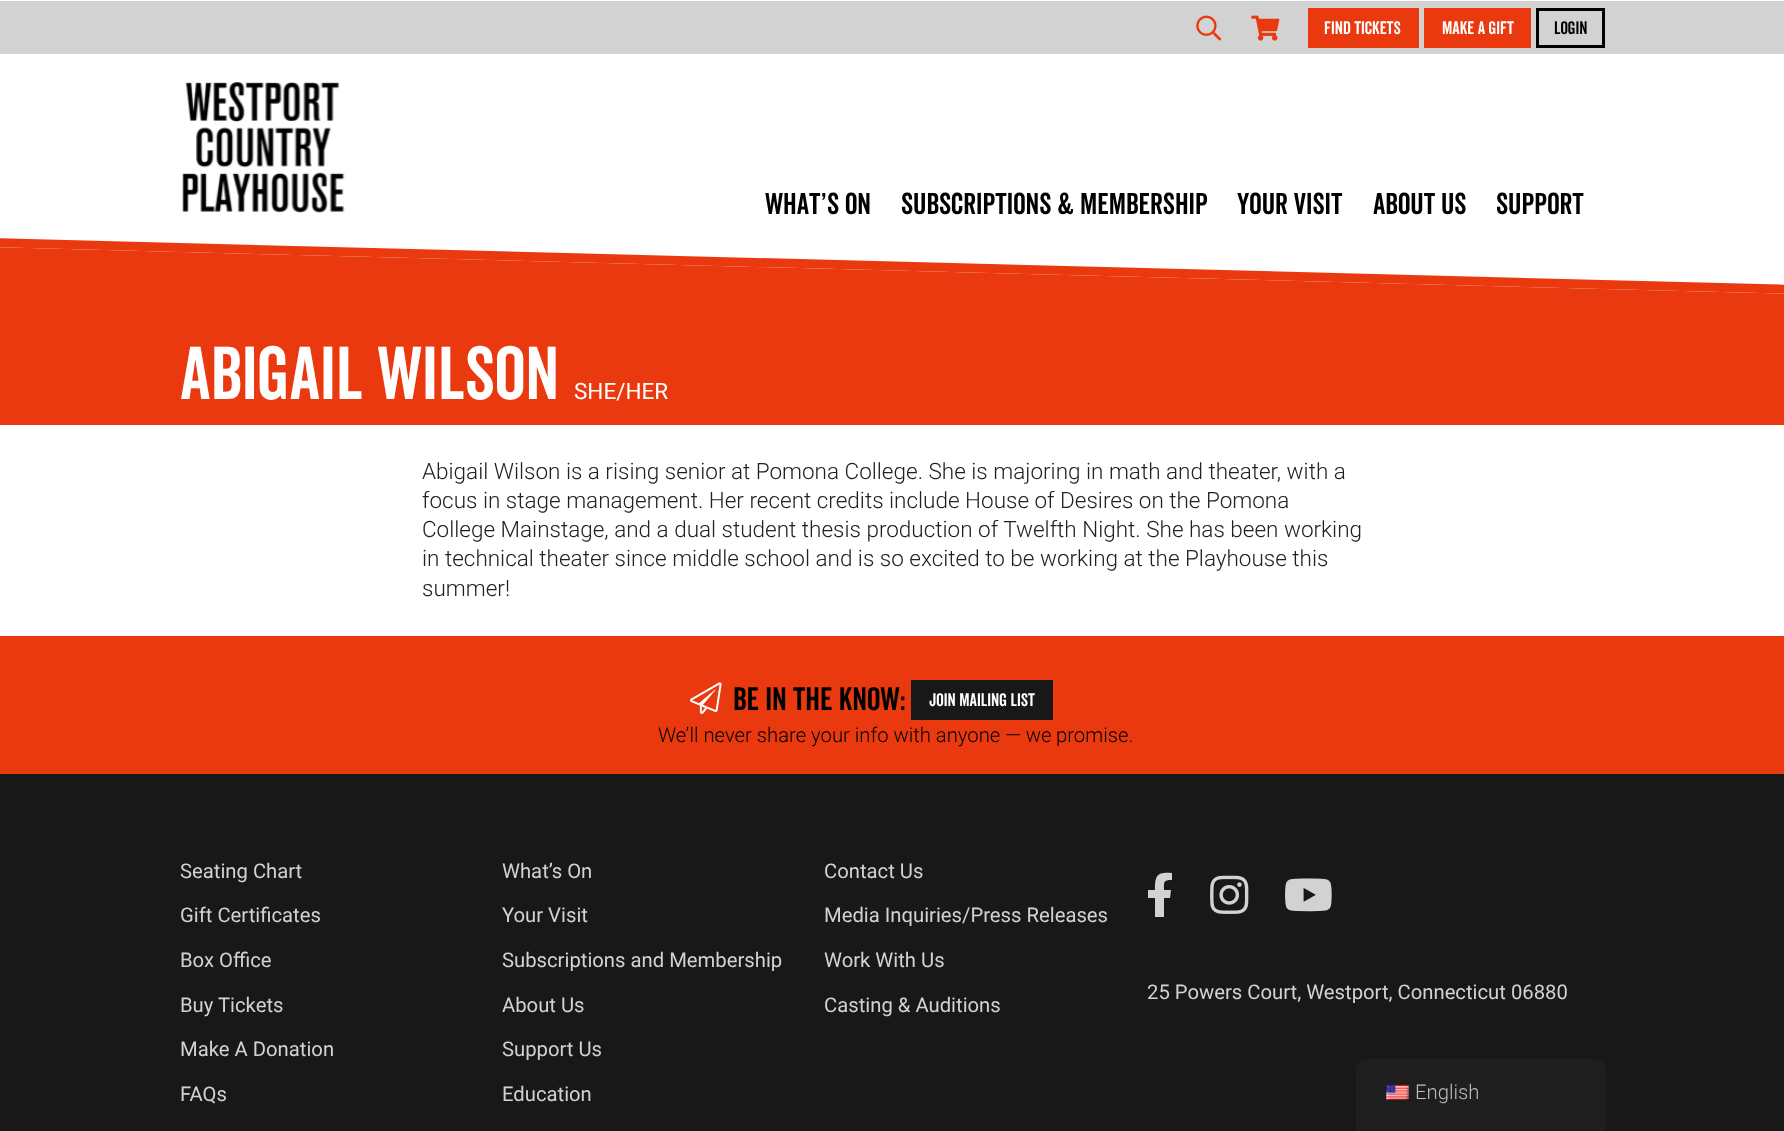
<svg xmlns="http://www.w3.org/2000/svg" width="1784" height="1131">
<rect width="100%" height="100%" fill="#fff"/>
<rect y="1" width="1784" height="53" fill="#d2d2d2"/>
<image x="1196" y="15" width="26" height="26" href="media/1.png"/>
<image x="1251" y="15" width="29" height="26" href="media/2.png"/>
<rect x="1308" y="8" width="111" height="40" fill="#ea380f"/>
<text x="1324" y="34" style="font-family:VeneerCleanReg;font-size:17.5px;fill:#fff">FIND TICKETS</text>
<rect x="1424" y="8" width="107" height="40" fill="#ea380f"/>
<text x="1442" y="34" style="font-family:VeneerCleanReg;font-size:17.5px;fill:#fff">MAKE A GIFT</text>
<rect x="1537.5" y="9.5" width="66" height="37" fill="none" stroke="#000" stroke-width="3"/>
<text x="1554" y="34" style="font-family:VeneerCleanReg;font-size:17.5px;fill:#000">LOGIN</text>
<rect y="247" width="1784" height="178" fill="#ea380f"/>
<path d="M-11 122l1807 47v125l-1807-47z" fill="#fff"/>
<path d="M-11 238l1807 47v9l-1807-47z" fill="#ea380f"/>
<image x="182" y="82" width="163" height="131" href="media/3.png"/>
<text x="765" y="214" style="font-family:VeneerCleanReg;font-size:29.25px;fill:#000">WHAT’S ON</text>
<text x="901" y="214" style="font-family:VeneerCleanReg;font-size:29.25px;fill:#000">SUBSCRIPTIONS &amp; MEMBERSHIP</text>
<text x="1237" y="214" style="font-family:VeneerCleanReg;font-size:29.25px;fill:#000">YOUR VISIT</text>
<text x="1373" y="214" style="font-family:VeneerCleanReg;font-size:29.25px;fill:#000">ABOUT US</text>
<text x="1496" y="214" style="font-family:VeneerCleanReg;font-size:29.25px;fill:#000">SUPPORT</text>
<text x="180" y="399" style="font-family:VeneerCleanReg;font-size:72.5px;fill:#fff">Abigail Wilson</text>
<text x="574" y="399" style="font-family:Roboto;font-size:22.5px;fill:#fff">SHE/HER</text>
<text x="422" y="479" style="font-family:Roboto;font-size:22.5px;font-weight:300;fill:#232020">Abigail Wilson is a rising senior at Pomona College. She is majoring in math and theater, with a</text>
<text x="422" y="508" style="font-family:Roboto;font-size:22.5px;font-weight:300;fill:#232020">focus in stage management. Her recent credits include House of Desires on the Pomona</text>
<text x="422" y="537" style="font-family:Roboto;font-size:22.5px;font-weight:300;fill:#232020">College Mainstage, and a dual student thesis production of Twelfth Night. She has been working</text>
<text x="422" y="566" style="font-family:Roboto;font-size:22.5px;font-weight:300;fill:#232020">in technical theater since middle school and is so excited to be working at the Playhouse this</text>
<text x="422" y="596" style="font-family:Roboto;font-size:22.5px;font-weight:300;fill:#232020">summer!</text>
<rect y="636" width="1784" height="138" fill="#ea380f"/>
<image x="690" y="682" width="32" height="32" href="media/4.png"/>
<text x="733" y="710" style="font-family:VeneerCleanReg;font-size:31.5px;fill:#000">BE IN THE KNOW:</text>
<rect x="911" y="680" width="142" height="40" fill="#181818"/>
<text x="929" y="706" style="font-family:VeneerCleanReg;font-size:17.5px;fill:#fff">Join Mailing List</text>
<text x="658" y="742" style="font-family:Roboto;font-size:20.25px;font-weight:300;fill:#000">We’ll never share your info with anyone — we</text>
<text x="1056" y="742" style="font-family:Roboto;font-size:20.25px;font-weight:300;fill:#000">promise.</text>
<rect y="774" width="1784" height="357" fill="#181818"/>
<text x="180" y="878" style="font-family:Roboto;font-size:20.25px;fill:#d2d2d2">Seating Chart</text>
<text x="180" y="922" style="font-family:Roboto;font-size:20.25px;fill:#d2d2d2">Gift Certificates</text>
<text x="180" y="967" style="font-family:Roboto;font-size:20.25px;fill:#d2d2d2">Box Office</text>
<text x="180" y="1012" style="font-family:Roboto;font-size:20.25px;fill:#d2d2d2">Buy Tickets</text>
<text x="180" y="1056" style="font-family:Roboto;font-size:20.25px;fill:#d2d2d2">Make A Donation</text>
<text x="180" y="1101" style="font-family:Roboto;font-size:20.25px;fill:#d2d2d2">FAQs</text>
<text x="502" y="878" style="font-family:Roboto;font-size:20.25px;fill:#d2d2d2">What’s On</text>
<text x="502" y="922" style="font-family:Roboto;font-size:20.25px;fill:#d2d2d2">Your Visit</text>
<text x="502" y="967" style="font-family:Roboto;font-size:20.25px;fill:#d2d2d2">Subscriptions and Membership</text>
<text x="502" y="1012" style="font-family:Roboto;font-size:20.25px;fill:#d2d2d2">About Us</text>
<text x="502" y="1056" style="font-family:Roboto;font-size:20.25px;fill:#d2d2d2">Support Us</text>
<text x="502" y="1101" style="font-family:Roboto;font-size:20.25px;fill:#d2d2d2">Education</text>
<text x="824" y="878" style="font-family:Roboto;font-size:20.25px;fill:#d2d2d2">Contact Us</text>
<text x="824" y="922" style="font-family:Roboto;font-size:20.25px;fill:#d2d2d2">Media Inquiries/Press Releases</text>
<text x="824" y="967" style="font-family:Roboto;font-size:20.25px;fill:#d2d2d2">Work With Us</text>
<text x="824" y="1012" style="font-family:Roboto;font-size:20.25px;fill:#d2d2d2">Casting &amp; Auditions</text>
<path d="M1170 898h-6v19h-9v-19h-7v-8h7c0-15 2-18 17-17v7c-9 0-8 2-8 10h7z" fill="#d2d2d2"/>
<image x="1210" y="875" width="39" height="39" href="media/5.png"/>
<image x="1285" y="878" width="47" height="34" href="media/6.png"/>
<text x="1147" y="999" style="font-family:Roboto;font-size:20.25px;fill:#d2d2d2">25 Powers Court, Westport, Connecticut 06880</text>
<path d="M1366 1059h230c5.5 0 10 4.5 10 10v62h-250v-62c0-5.5 4.5-10 10-10z" fill="#1e1e1e"/>
<image x="1386" y="1084" width="23" height="16" href="media/7.png"/>
<text x="1415" y="1099" style="font-family:Roboto;font-size:20.25px;font-weight:300;fill:#bdbdbd">English</text>
</svg>
